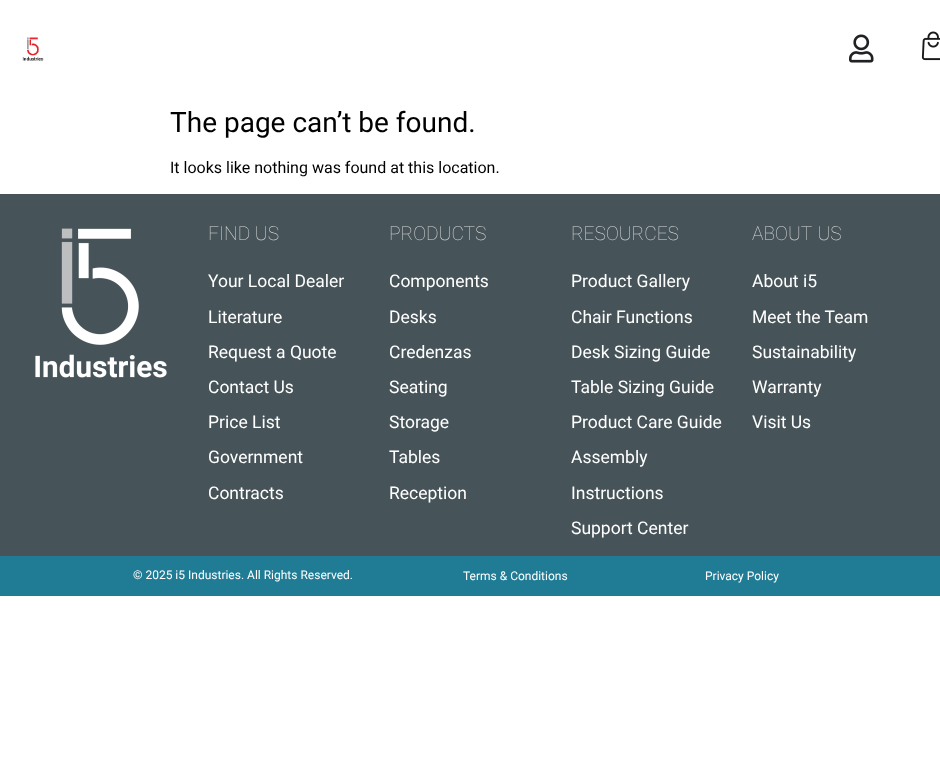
<svg xmlns="http://www.w3.org/2000/svg" width="940" height="769">
<rect width="100%" height="100%" fill="#fff"/>
<image x="22" y="37" width="22" height="24" href="media/1.png"/>
<image x="849" y="34" width="25" height="29" href="media/2.png"/>
<image x="921" y="31" width="19" height="30" href="media/3.png"/>
<text x="170" y="132" style="font-family:Roboto;font-size:28px;fill:#000">The page can’t be found.</text>
<text x="170" y="173" style="font-family:Roboto;font-size:16px;fill:#000">It looks like nothing was found at this location.</text>
<rect y="194" width="940" height="362" fill="#465359"/>
<image x="35" y="228" width="132" height="150" href="media/4.png"/>
<text x="208" y="240" style="font-family:Roboto;font-size:19.25px;font-weight:100;fill:#d7d7d7">FIND US</text>
<text x="208" y="287" style="font-family:Roboto;font-size:17.5px;fill:#fff">Your Local Dealer</text>
<text x="208" y="323" style="font-family:Roboto;font-size:17.5px;fill:#fff">Literature</text>
<text x="208" y="358" style="font-family:Roboto;font-size:17.5px;fill:#fff">Request a Quote</text>
<text x="208" y="393" style="font-family:Roboto;font-size:17.5px;fill:#fff">Contact Us</text>
<text x="208" y="428" style="font-family:Roboto;font-size:17.5px;fill:#fff">Price List</text>
<text x="208" y="463" style="font-family:Roboto;font-size:17.5px;fill:#fff">Government</text>
<text x="208" y="499" style="font-family:Roboto;font-size:17.5px;fill:#fff">Contracts</text>
<text x="389" y="240" style="font-family:Roboto;font-size:19.25px;font-weight:100;fill:#d7d7d7">PRODUCTS</text>
<text x="389" y="287" style="font-family:Roboto;font-size:17.5px;fill:#fff">Components</text>
<text x="389" y="323" style="font-family:Roboto;font-size:17.5px;fill:#fff">Desks</text>
<text x="389" y="358" style="font-family:Roboto;font-size:17.5px;fill:#fff">Credenzas</text>
<text x="389" y="393" style="font-family:Roboto;font-size:17.5px;fill:#fff">Seating</text>
<text x="389" y="428" style="font-family:Roboto;font-size:17.5px;fill:#fff">Storage</text>
<text x="389" y="463" style="font-family:Roboto;font-size:17.5px;fill:#fff">Tables</text>
<text x="389" y="499" style="font-family:Roboto;font-size:17.5px;fill:#fff">Reception</text>
<text x="571" y="240" style="font-family:Roboto;font-size:19.25px;font-weight:100;fill:#d7d7d7">RESOURCES</text>
<text x="571" y="287" style="font-family:Roboto;font-size:17.5px;fill:#fff">Product Gallery</text>
<text x="571" y="323" style="font-family:Roboto;font-size:17.5px;fill:#fff">Chair Functions</text>
<text x="571" y="358" style="font-family:Roboto;font-size:17.5px;fill:#fff">Desk Sizing Guide</text>
<text x="571" y="393" style="font-family:Roboto;font-size:17.5px;fill:#fff">Table Sizing Guide</text>
<text x="571" y="428" style="font-family:Roboto;font-size:17.5px;fill:#fff">Product Care Guide</text>
<text x="571" y="463" style="font-family:Roboto;font-size:17.5px;fill:#fff">Assembly</text>
<text x="571" y="499" style="font-family:Roboto;font-size:17.5px;fill:#fff">Instructions</text>
<text x="571" y="534" style="font-family:Roboto;font-size:17.5px;fill:#fff">Support Center</text>
<text x="752" y="240" word-spacing="1" style="font-family:Roboto;font-size:19.25px;font-weight:100;fill:#d7d7d7">ABOUT US</text>
<text x="752" y="287" style="font-family:Roboto;font-size:17.5px;fill:#fff">About i5</text>
<text x="752" y="323" style="font-family:Roboto;font-size:17.5px;fill:#fff">Meet the Team</text>
<text x="752" y="358" style="font-family:Roboto;font-size:17.5px;fill:#fff">Sustainability</text>
<text x="752" y="393" style="font-family:Roboto;font-size:17.5px;fill:#fff">Warranty</text>
<text x="752" y="428" style="font-family:Roboto;font-size:17.5px;fill:#fff">Visit Us</text>
<rect y="556" width="940" height="40" fill="#207b95"/>
<text x="133" y="579" style="font-family:Roboto;font-size:12px;fill:#fff">© 2025 i5 Industries. All Rights Reserved.</text>
<text x="463" y="580" style="font-family:Roboto;font-size:12px;fill:#fff">Terms &amp; Conditions</text>
<text x="705" y="580" style="font-family:Roboto;font-size:12px;fill:#fff">Privacy Policy</text>
</svg>
